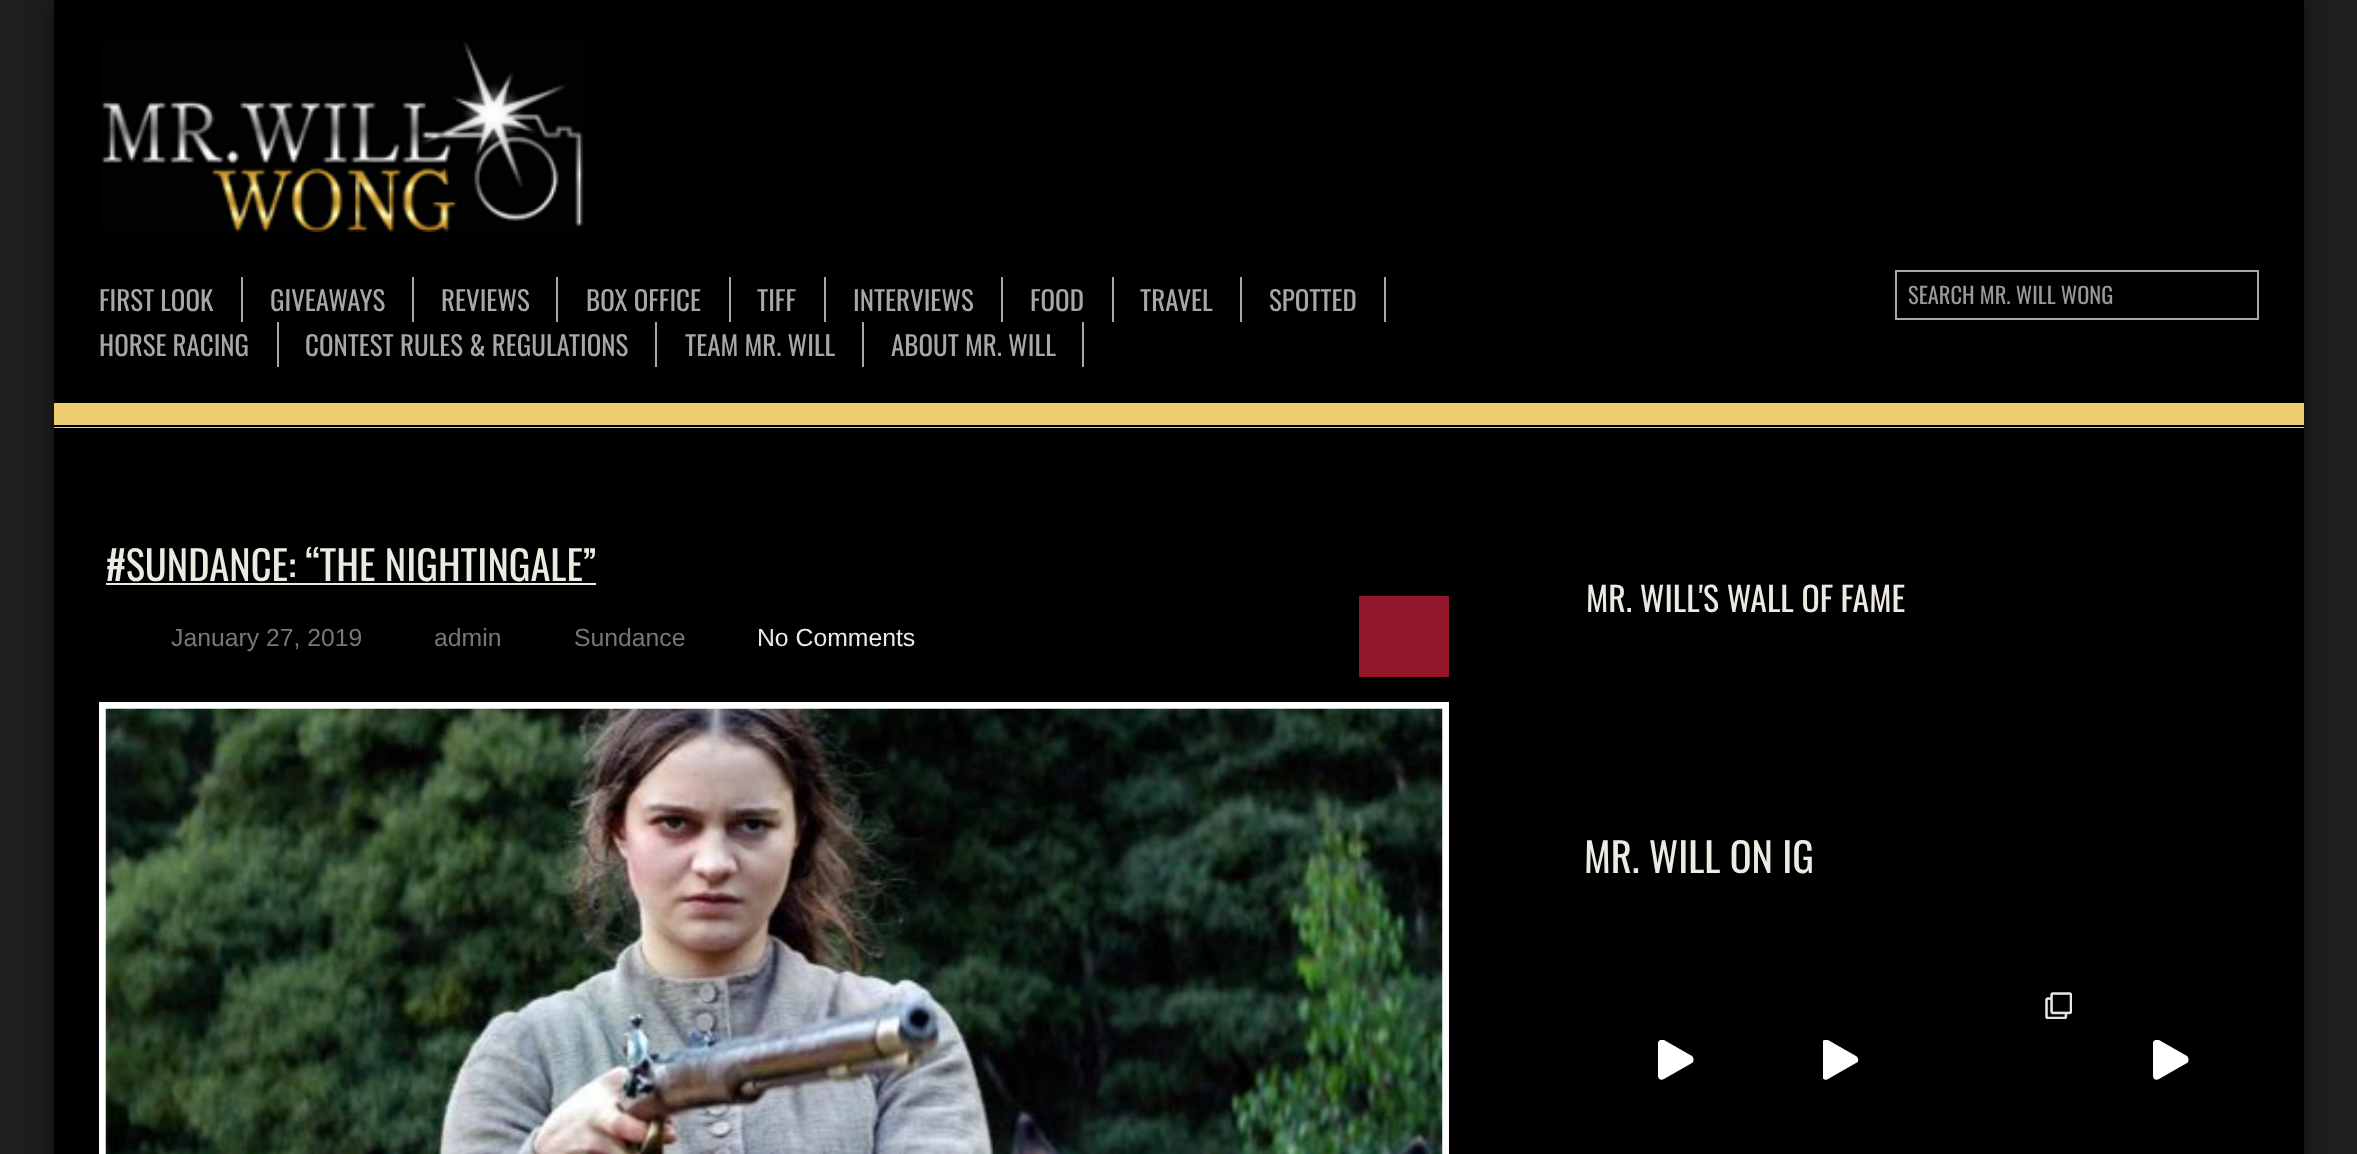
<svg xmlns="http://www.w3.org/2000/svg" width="2357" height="1154">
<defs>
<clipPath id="clip1"><rect x="1658" y="1040" width="36" height="40"/></clipPath>
<clipPath id="clip2"><rect x="1823" y="1040" width="36" height="40"/></clipPath>
<clipPath id="clip3"><rect x="2153" y="1040" width="36" height="40"/></clipPath>
</defs>
<rect width="100%" height="100%" fill="#1e1e1e"/>
<rect x="54" width="2250" height="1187" fill="#00000080" filter="blur(11px)"/>
<rect x="54" width="2250" height="1154" fill="#000"/>
<image x="101" y="41" width="483" height="191" href="media/1.png"/>
<rect x="241" y="277" width="2" height="45" fill="#a8a6a7"/>
<text x="99" y="311" style="font-family:Oswald;font-size:27px;fill:#a8a6a7">FIRST LOOK</text>
<rect x="412" y="277" width="2" height="45" fill="#a8a6a7"/>
<text x="270" y="311" style="font-family:Oswald;font-size:27px;fill:#a8a6a7">GIVEAWAYS</text>
<rect x="556" y="277" width="2" height="45" fill="#a8a6a7"/>
<text x="441" y="311" style="font-family:Oswald;font-size:27px;fill:#a8a6a7">REVIEWS</text>
<rect x="729" y="277" width="2" height="45" fill="#a8a6a7"/>
<text x="586" y="311" style="font-family:Oswald;font-size:27px;fill:#a8a6a7">BOX OFFICE</text>
<rect x="824" y="277" width="2" height="45" fill="#a8a6a7"/>
<text x="757" y="311" style="font-family:Oswald;font-size:27px;fill:#a8a6a7">TIFF</text>
<rect x="1001" y="277" width="2" height="45" fill="#a8a6a7"/>
<text x="853" y="311" style="font-family:Oswald;font-size:27px;fill:#a8a6a7">INTERVIEWS</text>
<rect x="1112" y="277" width="2" height="45" fill="#a8a6a7"/>
<text x="1030" y="311" style="font-family:Oswald;font-size:27px;fill:#a8a6a7">FOOD</text>
<rect x="1240" y="277" width="2" height="45" fill="#a8a6a7"/>
<text x="1140" y="311" style="font-family:Oswald;font-size:27px;fill:#a8a6a7">TRAVEL</text>
<rect x="1384" y="277" width="2" height="45" fill="#a8a6a7"/>
<text x="1269" y="311" style="font-family:Oswald;font-size:27px;fill:#a8a6a7">SPOTTED</text>
<rect x="277" y="322" width="2" height="45" fill="#a8a6a7"/>
<text x="99" y="356" style="font-family:Oswald;font-size:27px;fill:#a8a6a7">HORSE RACING</text>
<rect x="655" y="322" width="2" height="45" fill="#a8a6a7"/>
<text x="305" y="356" style="font-family:Oswald;font-size:27px;fill:#a8a6a7">CONTEST RULES &amp; REGULATIONS</text>
<rect x="862" y="322" width="2" height="45" fill="#a8a6a7"/>
<text x="685" y="356" style="font-family:Oswald;font-size:27px;fill:#a8a6a7">TEAM MR. WILL</text>
<rect x="1082" y="322" width="2" height="45" fill="#a8a6a7"/>
<text x="891" y="356" style="font-family:Oswald;font-size:27px;fill:#a8a6a7">ABOUT MR. WILL</text>
<rect x="1896" y="271" width="362" height="48" fill="none" stroke="#a8a6a7" stroke-width="2"/>
<text x="1908" y="304" style="font-family:Oswald;font-size:22.5px;fill:#999">SEARCH MR. WILL WONG</text>
<rect x="54" y="403" width="2250" height="25" fill="#efce70"/>
<rect x="54" y="425" width="2250" height="2" fill="#000"/>
<text x="106" y="581" style="font-family:Oswald;font-size:40.5px;fill:#edeae2">#SUNDANCE: “THE NIGHTINGALE”</text>
<rect x="106" y="583" width="490" height="2" fill="#edeae2"/>
<text x="171" y="646" style="font-family:Liberation Sans;font-size:24.75px;fill:#777">January 27, 2019</text>
<text x="434" y="646" style="font-family:Liberation Sans;font-size:24.75px;fill:#777">admin</text>
<text x="574" y="646" style="font-family:Liberation Sans;font-size:24.75px;fill:#777">Sundance</text>
<text x="757" y="646" style="font-family:Liberation Sans;font-size:24.75px;fill:#edeae2">No Comments</text>
<rect x="1359" y="596" width="90" height="81" fill="#921529"/>
<rect x="102.5" y="705.5" width="1343" height="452" fill="none" stroke="#fff" stroke-width="7"/>
<image x="105" y="708" width="1338" height="446" href="media/2.png"/>
<text x="1586" y="612" style="font-family:Oswald;font-size:33.75px;fill:#edeae2">MR. WILL'S WALL OF FAME</text>
<text x="1584" y="873" style="font-family:Oswald;font-size:40.5px;fill:#edeae2">MR. WILL ON IG</text>
<image x="2045" y="992" width="27" height="27" href="media/3.png"/>
<g clip-path="url(#clip1)">
<path d="M1692 1056l-28-16c-2-1-6 0-6 3v33c0 3 3 5 6 3l28-16c2-1 2-5 0-7z" fill="#fff"/>
</g>
<g clip-path="url(#clip2)">
<path d="M1856 1056l-28-16c-2-1-6 0-6 3v33c0 3 4 5 6 3l28-16c3-1 3-5 0-7z" fill="#fff"/>
</g>
<g clip-path="url(#clip3)">
<path d="M2187 1056l-28-16c-2-1-6 0-6 3v33c0 3 3 5 6 3l28-16c2-1 2-5 0-7z" fill="#fff"/>
</g>
</svg>
